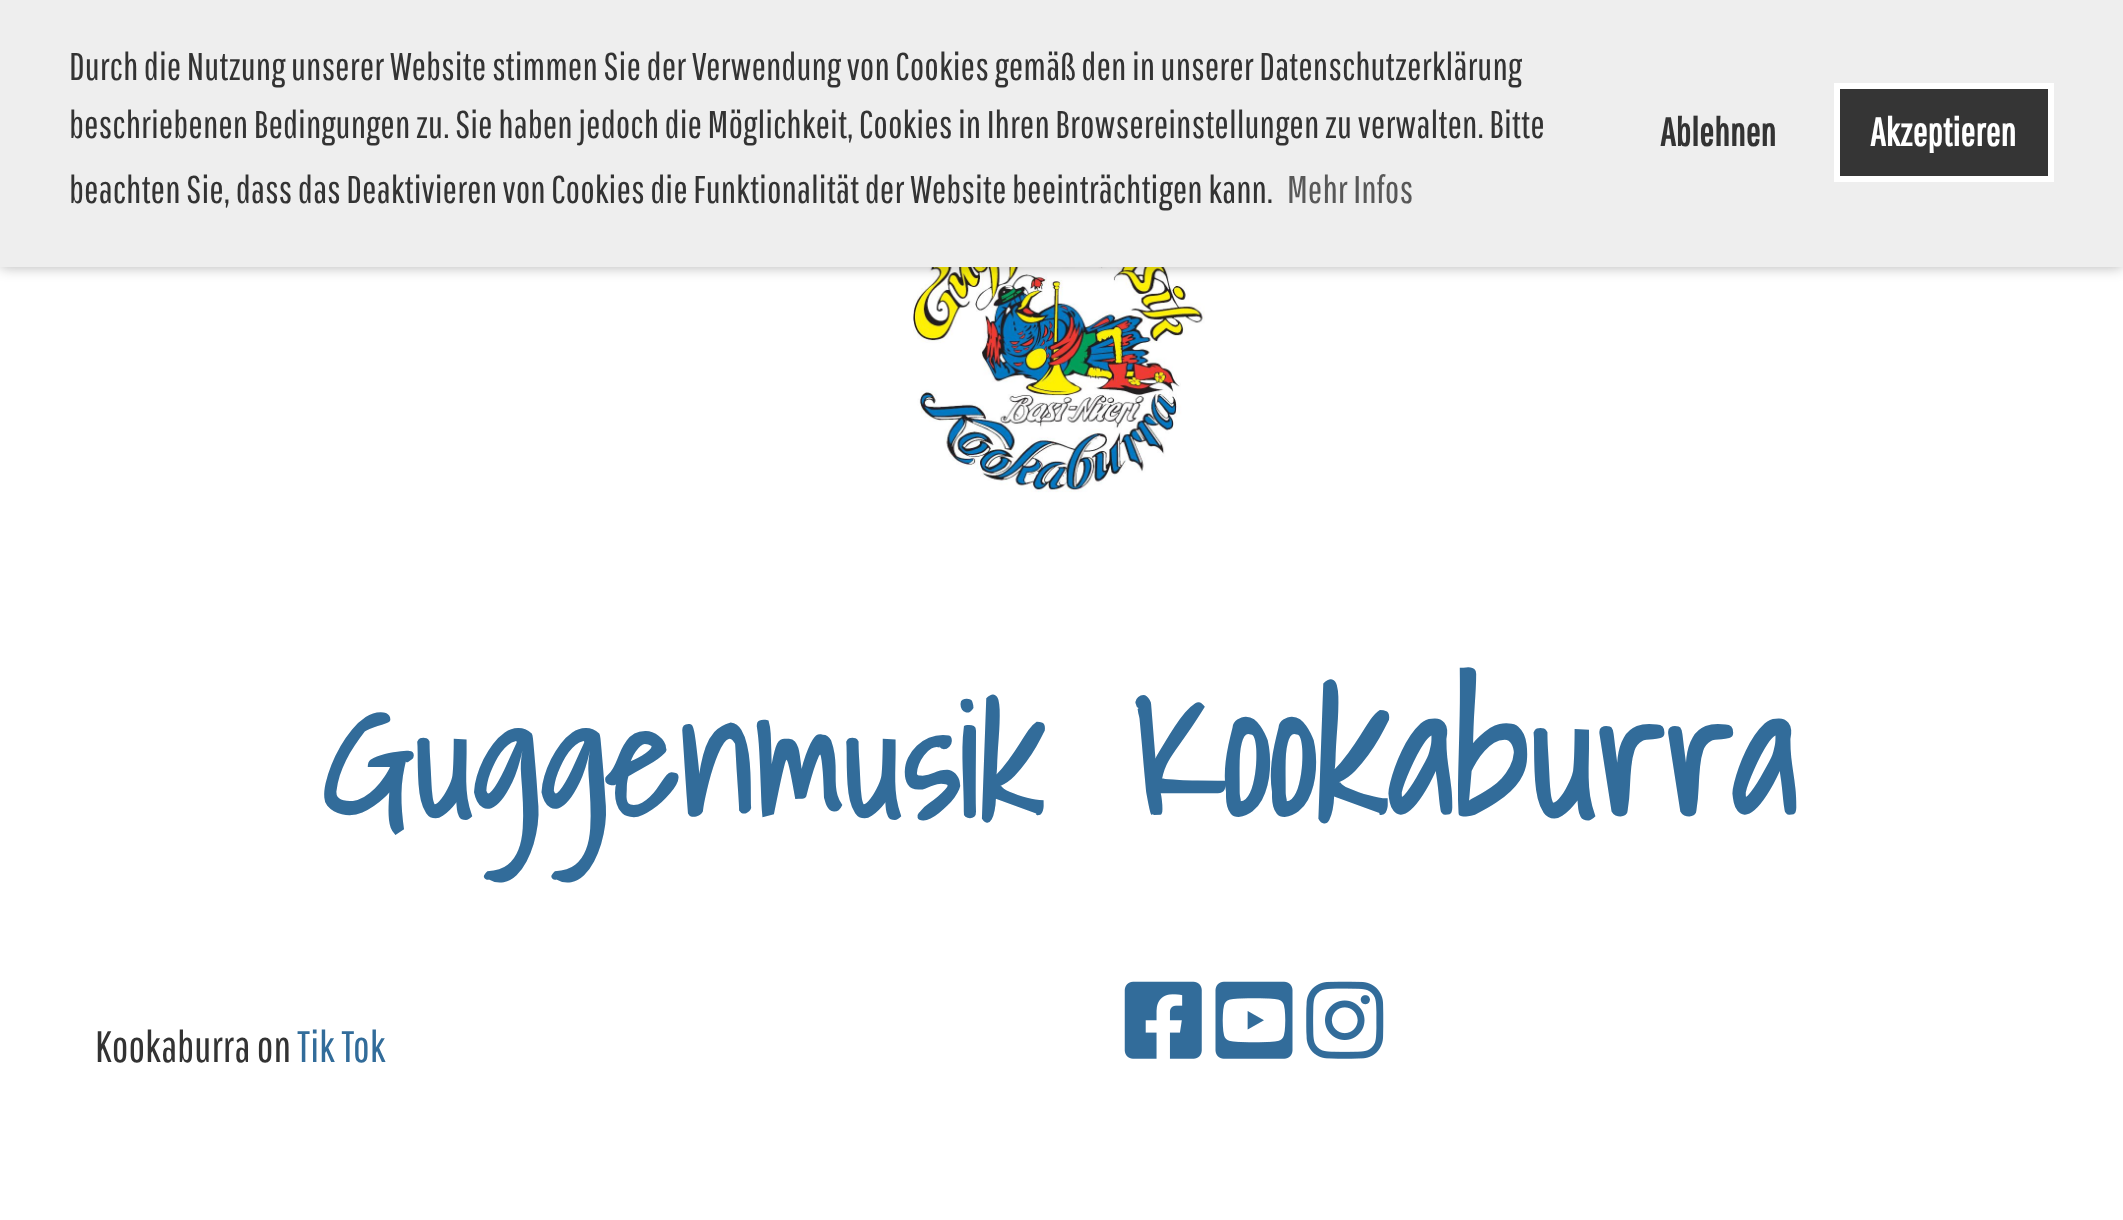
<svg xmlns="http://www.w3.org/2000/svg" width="2123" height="1220">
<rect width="100%" height="100%" fill="#fff"/>
<image x="913" y="267" width="292" height="226" href="media/1.png"/>
<rect width="2123" height="267" fill="#0000004d" filter="blur(7px)"/>
<rect width="2123" height="267" fill="#eee"/>
<text x="69" y="80" style="font-family:Pathway Gothic One;font-size:38.5px;fill:#333">Durch die Nutzung unserer Website stimmen Sie der Verwendung von Cookies gemäß den in unserer Datenschutzerklärung</text>
<text x="69" y="138" style="font-family:Pathway Gothic One;font-size:38.5px;fill:#333">beschriebenen Bedingungen zu. Sie haben jedoch die Möglichkeit, Cookies in Ihren Browsereinstellungen zu verwalten. Bitte</text>
<text x="69" y="203" style="font-family:Pathway Gothic One;font-size:38.5px;fill:#333">beachten Sie, dass das Deaktivieren von Cookies die Funktionalität der Website beeinträchtigen kann.</text>
<text x="1287" y="203" style="font-family:Pathway Gothic One;font-size:38.5px;fill:#585858">Mehr Infos</text>
<text x="1660" y="146" style="font-family:Pathway Gothic One;font-size:39.5px;font-weight:bold;fill:#333">Ablehnen</text>
<rect x="1837" y="86" width="214" height="93" fill="#353535" stroke="#fff" stroke-width="6"/>
<text x="1870" y="146" style="font-family:Pathway Gothic One;font-size:39.5px;font-weight:bold;fill:#fff">Akzeptieren</text>
<text x="321" y="817" style="font-family:Shadows Into Light;font-size:154px;font-weight:bold;fill:#326c9a">Guggenmusik</text>
<text x="1131" y="817" style="font-family:Shadows Into Light;font-size:173px;font-weight:bold;fill:#326c9a">Kookaburra</text>
<text x="95" y="1062" style="font-family:Pathway Gothic One;font-size:44px;fill:#333">Kookaburra on</text>
<text x="297" y="1062" style="font-family:Pathway Gothic One;font-size:44px;fill:#326c9a">Tik Tok</text>
<image x="1124" y="981" width="78" height="78" href="media/2.png"/>
<image x="1215" y="981" width="78" height="78" href="media/3.png"/>
<image x="1306" y="981" width="78" height="78" href="media/4.png"/>
</svg>
